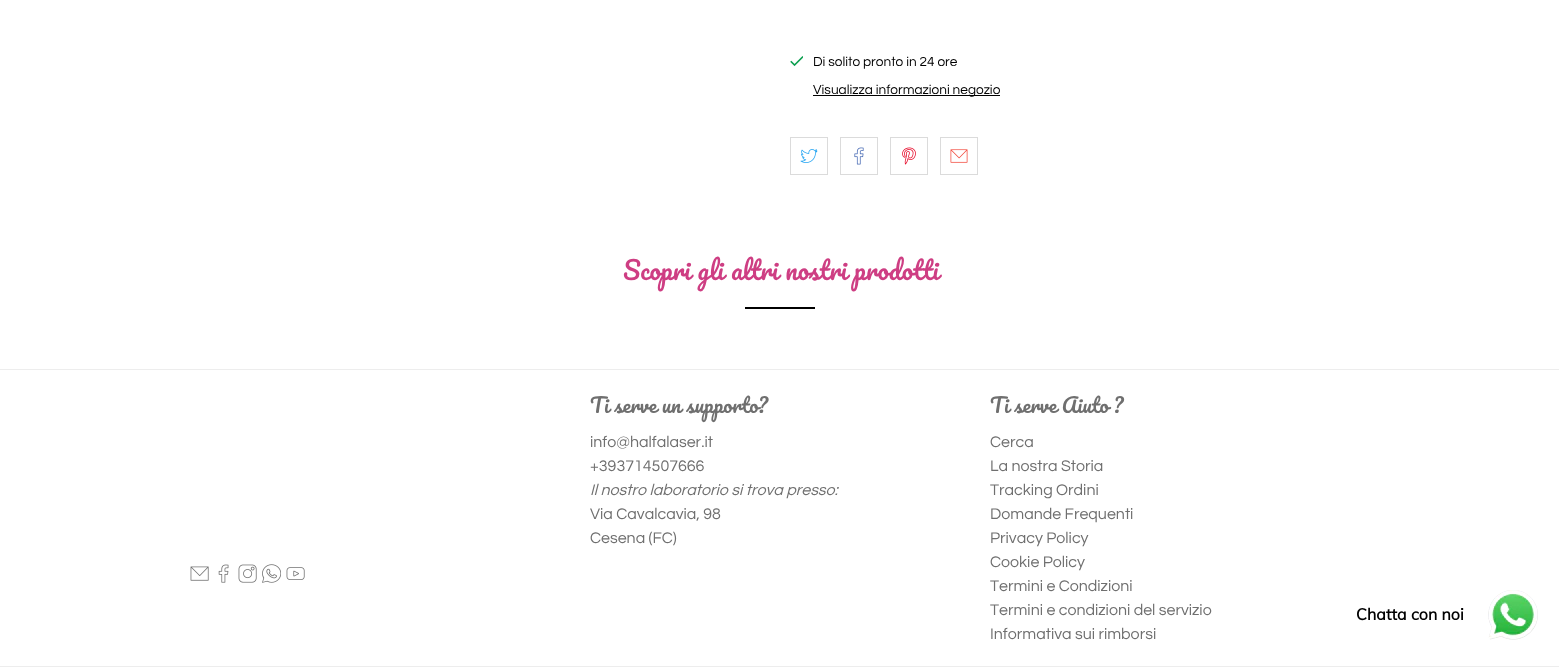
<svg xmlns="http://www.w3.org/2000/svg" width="1559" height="670">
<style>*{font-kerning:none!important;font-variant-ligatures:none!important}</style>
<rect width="100%" height="100%" fill="#fff"/>
<image x="790" y="56" width="13" height="11" href="media/1.png"/>
<text x="813" y="66" style="font-family:Questrial;font-size:13.6px;fill:#000">Di solito pronto in 24 ore</text>
<rect x="813" y="95" width="187" height="1" fill="#000"/>
<text x="813" y="94" style="font-family:Questrial;font-size:13.6px;fill:#000">Visualizza informazioni negozio</text>
<rect x="790.5" y="137.5" width="37" height="37" fill="none" stroke="#dbdbdb"/>
<image x="800" y="149" width="18" height="14" href="media/2.png"/>
<rect x="840.5" y="137.5" width="37" height="37" fill="none" stroke="#dbdbdb"/>
<image x="854" y="147" width="10" height="18" href="media/3.png"/>
<rect x="890.5" y="137.5" width="37" height="37" fill="none" stroke="#dbdbdb"/>
<image x="902" y="147" width="14" height="18" href="media/4.png"/>
<rect x="940.5" y="137.5" width="37" height="37" fill="none" stroke="#dbdbdb"/>
<image x="950" y="149" width="18" height="14" href="media/5.png"/>
<text x="623" y="280" word-spacing="0.5" style="font-family:Pacifico;font-size:25px;fill:#ce3e83">Scopri gli altri nostri prodotti</text>
<rect x="745" y="307" width="70" height="2" fill="#000"/>
<rect y="369" width="1559" height="1" fill="#ededed"/>
<rect y="666" width="1559" height="1" fill="#ededed"/>
<image x="190" y="566" width="19" height="15" href="media/6.png"/>
<image x="218" y="564" width="11" height="19" href="media/7.png"/>
<image x="238" y="564" width="19" height="19" href="media/8.png"/>
<image x="262" y="564" width="19" height="19" href="media/9.png"/>
<image x="286" y="567" width="19" height="13" href="media/10.png"/>
<text x="590" y="413" style="font-family:Pacifico;font-size:20px;fill:#6f6f6f">Ti serve un supporto?</text>
<text x="590" y="447" style="font-family:Questrial;font-size:16px;fill:#6f6f6f">info@halfalaser.it</text>
<text x="590" y="471" style="font-family:Questrial;font-size:16px;fill:#6f6f6f">+393714507666</text>
<text x="590" y="495" style="font-family:Questrial;font-size:16px;font-style:italic;fill:#6f6f6f">Il nostro laboratorio si trova presso:</text>
<text x="590" y="519" style="font-family:Questrial;font-size:16px;fill:#6f6f6f">Via Cavalcavia, 98</text>
<text x="590" y="543" style="font-family:Questrial;font-size:16px;fill:#6f6f6f">Cesena (FC)</text>
<text x="990" y="413" style="font-family:Pacifico;font-size:20px;fill:#6f6f6f">Ti serve Aiuto ?</text>
<text x="990" y="447" style="font-family:Questrial;font-size:16px;fill:#6f6f6f">Cerca</text>
<text x="990" y="471" style="font-family:Questrial;font-size:16px;fill:#6f6f6f">La nostra Storia</text>
<text x="990" y="495" style="font-family:Questrial;font-size:16px;fill:#6f6f6f">Tracking Ordini</text>
<text x="990" y="519" style="font-family:Questrial;font-size:16px;fill:#6f6f6f">Domande Frequenti</text>
<text x="990" y="543" style="font-family:Questrial;font-size:16px;fill:#6f6f6f">Privacy Policy</text>
<text x="990" y="567" style="font-family:Questrial;font-size:16px;fill:#6f6f6f">Cookie Policy</text>
<text x="990" y="591" style="font-family:Questrial;font-size:16px;fill:#6f6f6f">Termini e Condizioni</text>
<text x="990" y="615" style="font-family:Questrial;font-size:16px;fill:#6f6f6f">Termini e condizioni del servizio</text>
<text x="990" y="639" style="font-family:Questrial;font-size:16px;fill:#6f6f6f">Informativa sui rimborsi</text>
<image x="1488" y="590" width="50" height="50" href="media/11.png"/>
<text x="1356" y="620" style="font-family:Muli;font-size:16px;font-weight:bold;fill:#000">Chatta con noi</text>
</svg>
